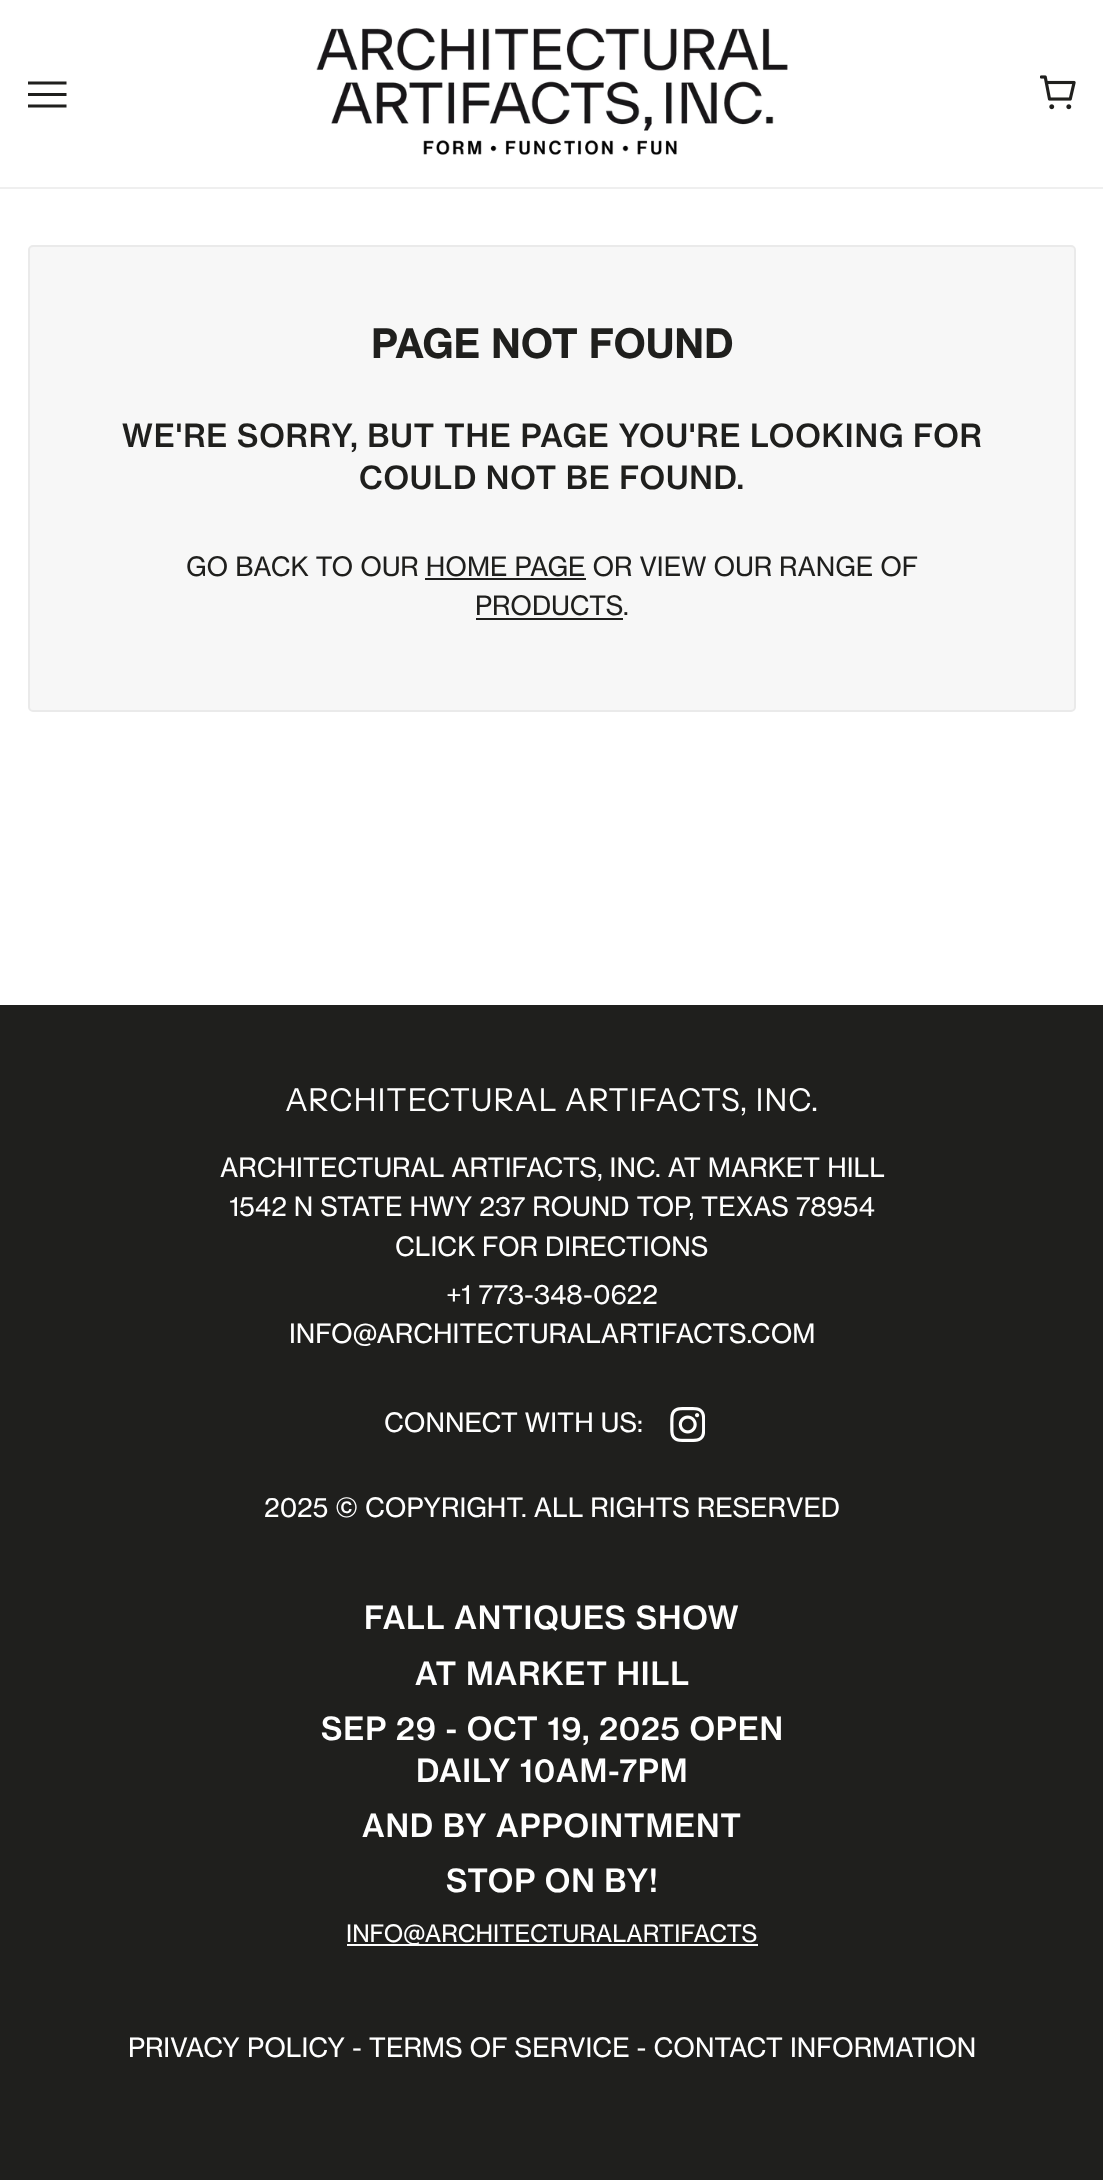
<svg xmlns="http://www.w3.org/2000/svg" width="1103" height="2180">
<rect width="100%" height="100%" fill="#fff"/>
<rect y="187" width="1103" height="2" fill="#efefef"/>
<path d="M28 84.5v-3h38.5v3zm0 11.5v-3h38.5v3zm0 11.5v-3h38.5v3z" fill="#1f1f1d"/>
<image x="316" y="28" width="472" height="127" href="media/1.png"/>
<image x="1040" y="75" width="36" height="35" href="media/2.png"/>
<rect x="29" y="246" width="1046" height="465" rx="4" fill="#f7f7f7" stroke="#eaeaea" stroke-width="2"/>
<text x="371" y="358" style="font-family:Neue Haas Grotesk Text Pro;font-size:38.5px;font-weight:bold;letter-spacing:1px;fill:#1f1f1d">PAGE NOT FOUND</text>
<text x="122" y="447" style="font-family:Neue Haas Grotesk Text Pro;font-size:31.5px;font-weight:500;letter-spacing:0.8px;fill:#1f1f1d">WE'RE SORRY, BUT THE PAGE YOU'RE LOOKING FOR</text>
<text x="359" y="489" style="font-family:Neue Haas Grotesk Text Pro;font-size:31.5px;font-weight:500;letter-spacing:0.8px;fill:#1f1f1d">COULD NOT BE FOUND.</text>
<text x="186" y="576" style="font-family:Neue Haas Grotesk Text Pro;font-size:26.25px;fill:#1f1f1d">GO BACK TO OUR HOME PAGE OR VIEW OUR RANGE OF</text>
<rect x="425" y="578" width="161" height="2" fill="#1f1f1d"/>
<text x="475" y="615" style="font-family:Neue Haas Grotesk Text Pro;font-size:26.25px;fill:#1f1f1d">PRODUCTS.</text>
<rect x="476" y="618" width="147" height="2" fill="#1f1f1d"/>
<rect y="1005" width="1103" height="1175" fill="#1f1f1d"/>
<text x="285" y="1111" style="font-family:Instrument Sans;font-size:31.5px;letter-spacing:0.8px;fill:#fff">ARCHITECTURAL ARTIFACTS, INC.</text>
<text x="220" y="1177" style="font-family:Neue Haas Grotesk Text Pro;font-size:26.25px;fill:#fff">ARCHITECTURAL ARTIFACTS, INC. AT MARKET HILL</text>
<text x="229" y="1216" style="font-family:Neue Haas Grotesk Text Pro;font-size:26.25px;fill:#fff">1542 N STATE HWY 237 ROUND TOP, TEXAS 78954</text>
<text x="395" y="1256" style="font-family:Neue Haas Grotesk Text Pro;font-size:26.25px;fill:#fff">CLICK FOR DIRECTIONS</text>
<text x="446" y="1304" style="font-family:Neue Haas Grotesk Text Pro;font-size:26.25px;fill:#fff">+1 773-348-0622</text>
<text x="289" y="1343" style="font-family:Neue Haas Grotesk Text Pro;font-size:26.25px;fill:#fff">INFO@ARCHITECTURALARTIFACTS.COM</text>
<text x="384" y="1432" style="font-family:Neue Haas Grotesk Text Pro;font-size:26.25px;fill:#fff">CONNECT WITH US:</text>
<image x="670" y="1407" width="35" height="35" href="media/3.png"/>
<text x="264" y="1517" style="font-family:Neue Haas Grotesk Text Pro;font-size:26.25px;fill:#fff">2025 © COPYRIGHT. ALL RIGHTS RESERVED</text>
<text x="364" y="1629" style="font-family:Neue Haas Grotesk Text Pro;font-size:31.5px;font-weight:500;letter-spacing:0.8px;fill:#fff">FALL ANTIQUES SHOW</text>
<text x="415" y="1685" style="font-family:Neue Haas Grotesk Text Pro;font-size:31.5px;font-weight:500;letter-spacing:0.8px;fill:#fff">AT MARKET HILL</text>
<text x="321" y="1740" style="font-family:Neue Haas Grotesk Text Pro;font-size:31.5px;font-weight:500;letter-spacing:0.8px;fill:#fff">SEP 29 - OCT 19, 2025 OPEN</text>
<text x="416" y="1782" style="font-family:Neue Haas Grotesk Text Pro;font-size:31.5px;font-weight:500;letter-spacing:0.8px;fill:#fff">DAILY 10AM-7PM</text>
<text x="362" y="1837" style="font-family:Neue Haas Grotesk Text Pro;font-size:31.5px;font-weight:500;letter-spacing:0.8px;fill:#fff">AND BY APPOINTMENT</text>
<text x="446" y="1892" style="font-family:Neue Haas Grotesk Text Pro;font-size:31.5px;font-weight:500;letter-spacing:0.8px;fill:#fff">STOP ON BY!</text>
<rect x="347" y="1944" width="411" height="2" fill="#fff"/>
<text x="346" y="1942" style="font-family:Neue Haas Grotesk Text Pro;font-size:23.6px;fill:#fff">INFO@ARCHITECTURALARTIFACTS</text>
<text x="128" y="2057" style="font-family:Neue Haas Grotesk Text Pro;font-size:26.25px;fill:#fff">PRIVACY POLICY - TERMS OF SERVICE - CONTACT INFORMATION</text>
</svg>
